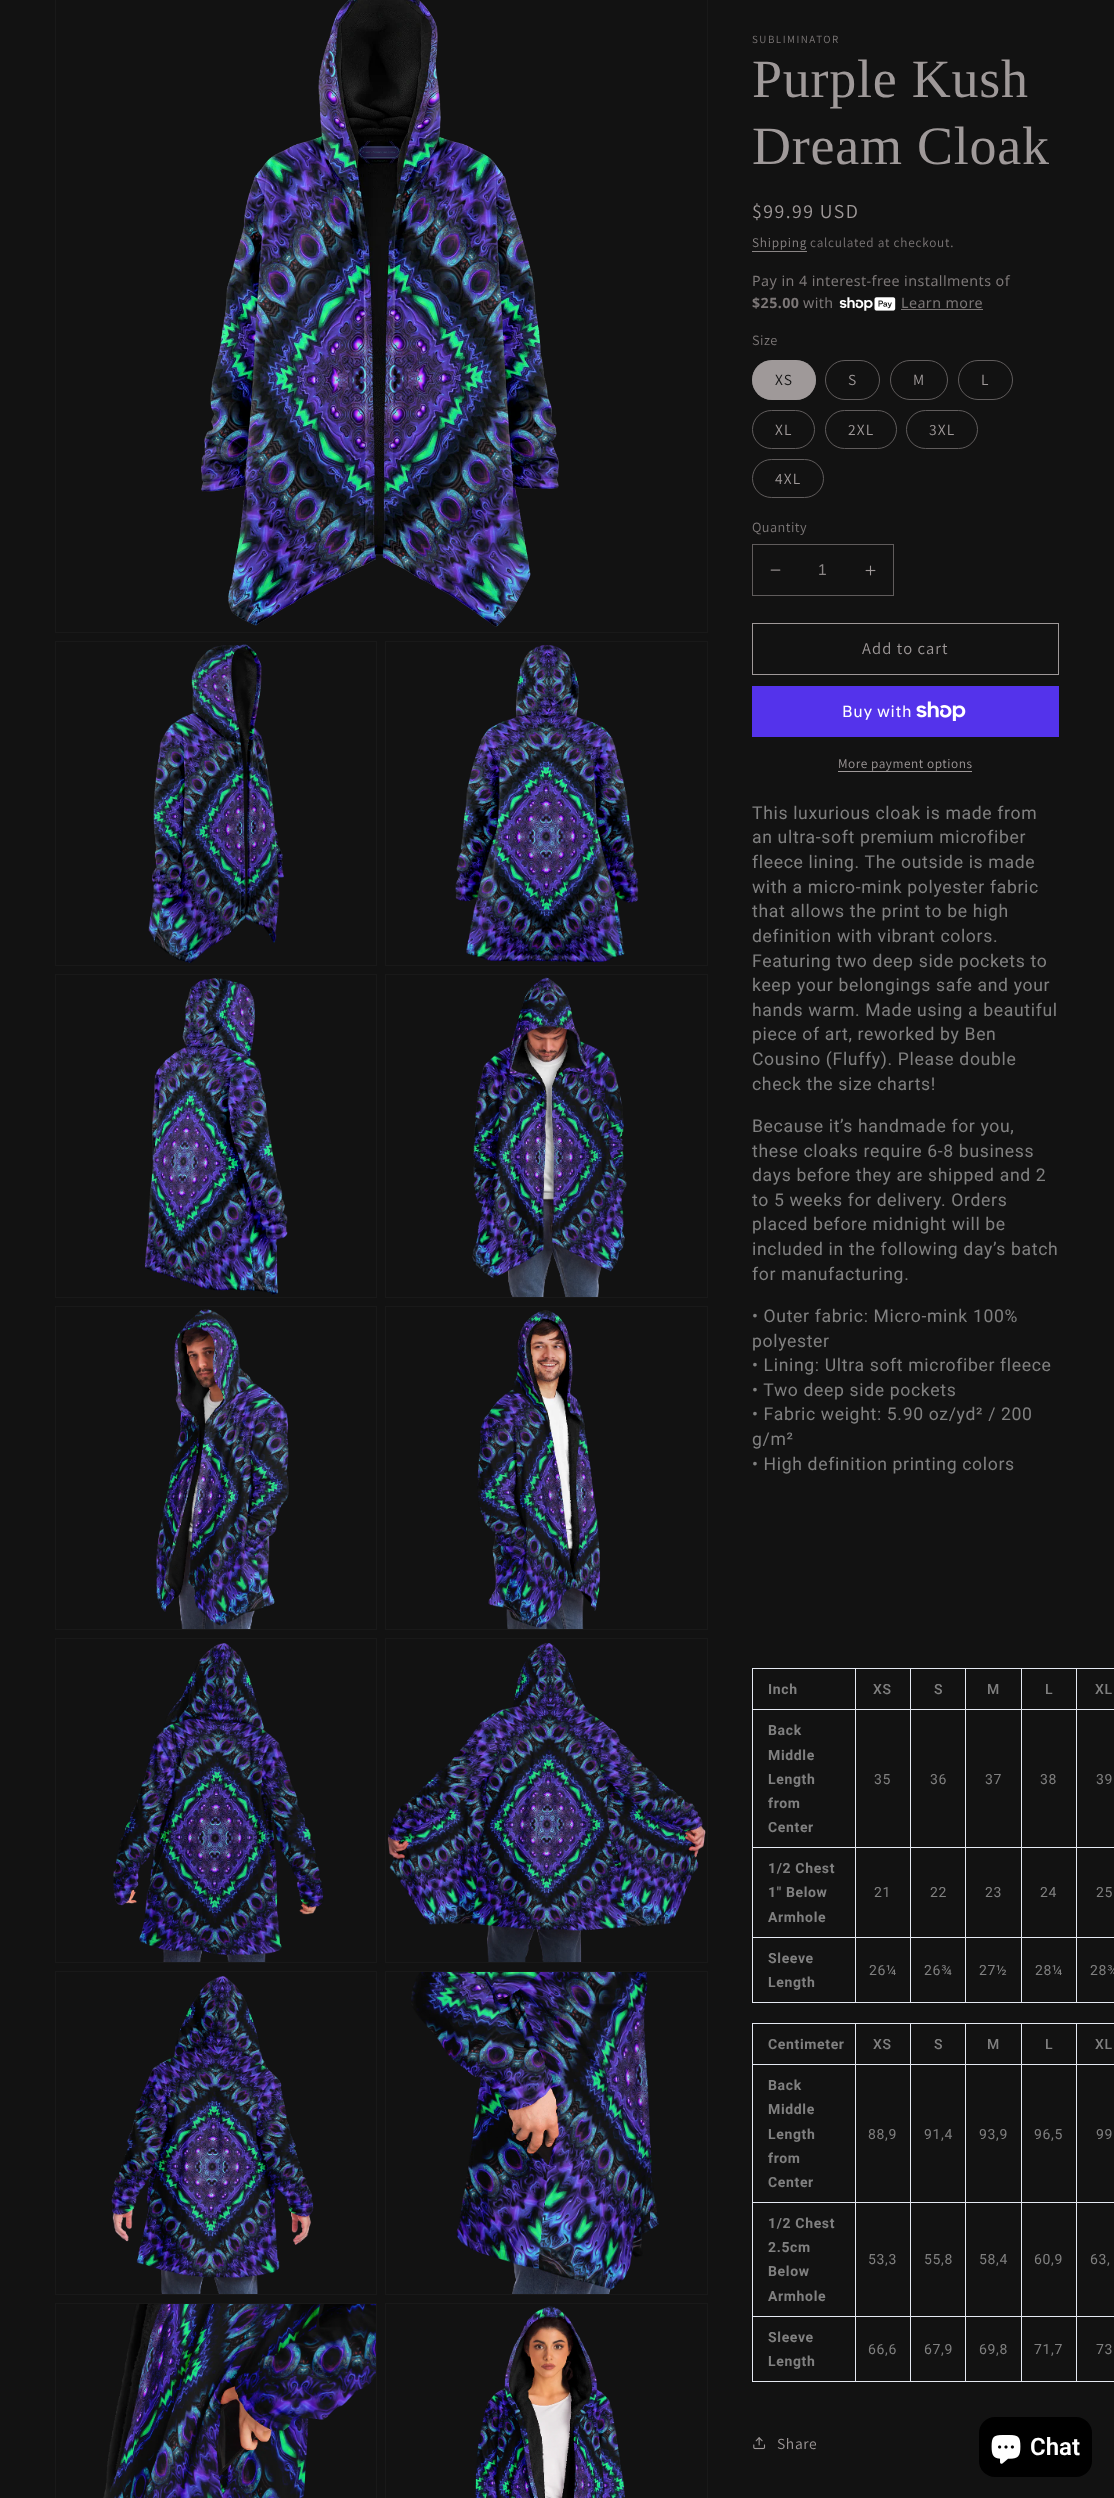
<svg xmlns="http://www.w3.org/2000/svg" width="1114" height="2498">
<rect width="100%" height="100%" fill="#121212"/>
<rect x="55.5" y="-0.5" width="652" height="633" fill="none" stroke="#191919"/>
<image x="201" y="0" width="358" height="627" href="media/1.png"/>
<rect x="55.5" y="641.5" width="321" height="324" fill="none" stroke="#191919"/>
<image x="148" y="644" width="136" height="319" href="media/2.png"/>
<rect x="385.5" y="641.5" width="322" height="324" fill="none" stroke="#191919"/>
<image x="455" y="645" width="184" height="318" href="media/3.png"/>
<rect x="55.5" y="974.5" width="321" height="323" fill="none" stroke="#191919"/>
<image x="144" y="978" width="144" height="317" href="media/4.png"/>
<rect x="385.5" y="974.5" width="322" height="323" fill="none" stroke="#191919"/>
<image x="472" y="977" width="155" height="320" href="media/5.png"/>
<rect x="55.5" y="1306.5" width="321" height="323" fill="none" stroke="#191919"/>
<image x="156" y="1309" width="133" height="320" href="media/6.png"/>
<rect x="385.5" y="1306.5" width="322" height="323" fill="none" stroke="#191919"/>
<image x="477" y="1310" width="124" height="319" href="media/7.png"/>
<rect x="55.5" y="1638.5" width="321" height="324" fill="none" stroke="#191919"/>
<image x="113" y="1643" width="211" height="319" href="media/8.png"/>
<rect x="385.5" y="1638.5" width="322" height="324" fill="none" stroke="#191919"/>
<image x="387" y="1643" width="319" height="319" href="media/9.png"/>
<rect x="55.5" y="1971.5" width="321" height="323" fill="none" stroke="#191919"/>
<image x="111" y="1976" width="203" height="318" href="media/10.png"/>
<rect x="385.5" y="1971.5" width="322" height="323" fill="none" stroke="#191919"/>
<image x="411" y="1972" width="248" height="322" href="media/11.png"/>
<rect x="55.5" y="2303.5" width="321" height="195" fill="none" stroke="#191919"/>
<image x="103" y="2304" width="273" height="194" href="media/12.png"/>
<rect x="385.5" y="2303.5" width="322" height="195" fill="none" stroke="#191919"/>
<image x="475" y="2306" width="151" height="192" href="media/13.png"/>
<text x="752" y="43" style="font-family:Assistant;font-size:11px;letter-spacing:1.5px;fill:#7c7777">SUBLIMINATOR</text>
<text x="752" y="97" style="font-family:Liberation Serif;font-size:54px;letter-spacing:0.75px;fill:#9f9999">Purple Kush</text>
<text x="752" y="164" style="font-family:Liberation Serif;font-size:54px;letter-spacing:0.75px;fill:#9f9999">Dream Cloak</text>
<text x="752" y="218" style="font-family:Assistant;font-size:19.75px;letter-spacing:1.5px;fill:#9f9999">$99.99 USD</text>
<text x="752" y="247" style="font-family:Assistant;font-size:13.25px;letter-spacing:0.75px;fill:#8a8585">Shipping</text>
<rect x="752" y="251" width="55" height="1" fill="#8a8585"/>
<text x="810" y="247" style="font-family:Assistant;font-size:13.25px;letter-spacing:0.75px;fill:#7c7777">calculated at checkout.</text>
<text x="752" y="286" style="font-family:Noto Sans;font-size:14.25px;letter-spacing:0.45px;fill:#7c7777">Pay in 4 interest-free installments of</text>
<text x="752" y="308" style="font-family:Noto Sans;font-size:14.25px;font-weight:bold;letter-spacing:0.45px;fill:#7c7777">$25.00</text>
<text x="803" y="308" style="font-family:Noto Sans;font-size:14.25px;letter-spacing:0.45px;fill:#7c7777">with</text>
<image x="839" y="297" width="57" height="14" href="media/14.png"/>
<text x="901" y="308" style="font-family:Noto Sans;font-size:14.25px;letter-spacing:0.45px;fill:#7c7777">Learn more</text>
<rect x="901" y="309" width="82" height="1" fill="#7c7777"/>
<text x="752" y="345" style="font-family:Assistant;font-size:14.25px;letter-spacing:0.45px;fill:#7c7777">Size</text>
<rect x="752" y="360" width="64" height="40" rx="20" fill="#9f9999"/>
<rect x="752.5" y="360.5" width="63" height="39" rx="19.5" fill="none" stroke="#9f99998c"/>
<text x="775" y="385" style="font-family:Assistant;font-size:15.5px;letter-spacing:1.1px;fill:#121212">XS</text>
<rect x="825.5" y="360.5" width="54" height="39" rx="19.5" fill="none" stroke="#605c5c"/>
<text x="848" y="385" style="font-family:Assistant;font-size:15.5px;letter-spacing:1.1px;fill:#9f9999">S</text>
<rect x="890.5" y="360.5" width="57" height="39" rx="19.5" fill="none" stroke="#605c5c"/>
<text x="913" y="385" style="font-family:Assistant;font-size:15.5px;letter-spacing:1.1px;fill:#9f9999">M</text>
<rect x="958.5" y="360.5" width="54" height="39" rx="19.5" fill="none" stroke="#605c5c"/>
<text x="981" y="385" style="font-family:Assistant;font-size:15.5px;letter-spacing:1.1px;fill:#9f9999">L</text>
<rect x="752.5" y="410.5" width="62" height="38" rx="19" fill="none" stroke="#605c5c"/>
<text x="775" y="435" style="font-family:Assistant;font-size:15.5px;letter-spacing:1.1px;fill:#9f9999">XL</text>
<rect x="825.5" y="410.5" width="71" height="38" rx="19" fill="none" stroke="#605c5c"/>
<text x="848" y="435" style="font-family:Assistant;font-size:15.5px;letter-spacing:1.1px;fill:#9f9999">2XL</text>
<rect x="906.5" y="410.5" width="71" height="38" rx="19" fill="none" stroke="#605c5c"/>
<text x="929" y="435" style="font-family:Assistant;font-size:15.5px;letter-spacing:1.1px;fill:#9f9999">3XL</text>
<rect x="752.5" y="459.5" width="71" height="38" rx="19" fill="none" stroke="#605c5c"/>
<text x="775" y="484" style="font-family:Assistant;font-size:15.5px;letter-spacing:1.1px;fill:#9f9999">4XL</text>
<text x="752" y="532" style="font-family:Assistant;font-size:14.25px;letter-spacing:0.45px;fill:#7c7777">Quantity</text>
<image x="770" y="569" width="11" height="2" href="media/15.png"/>
<image x="865" y="565" width="11" height="11" href="media/16.png"/>
<rect x="752.5" y="544.5" width="141" height="51" fill="none" stroke="#605c5c"/>
<text x="818" y="575" style="font-family:Liberation Sans;font-size:15.5px;fill:#8a8585">1</text>
<rect x="752.5" y="623.5" width="306" height="51" fill="none" stroke="#9f9999"/>
<text x="862" y="654" style="font-family:Assistant;font-size:16.5px;letter-spacing:1.1px;fill:#9f9999">Add to cart</text>
<rect x="752" y="686" width="307" height="51" fill="#5433eb"/>
<text x="842" y="717" style="font-family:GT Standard;font-size:16px;letter-spacing:0.65px;fill:#fff">Buy with</text>
<image x="916" y="701" width="50" height="20" href="media/17.png"/>
<text x="838" y="768" style="font-family:Assistant;font-size:13.25px;letter-spacing:0.55px;fill:#9f9999">More payment options</text>
<rect x="838" y="771" width="134" height="1" fill="#9f9999"/>
<text x="752" y="819" style="font-family:Roboto;font-size:17.6px;letter-spacing:0.65px;fill:#808080">This luxurious cloak is made from</text>
<text x="752" y="843" style="font-family:Roboto;font-size:17.6px;letter-spacing:0.65px;fill:#808080">an ultra-soft premium microfiber</text>
<text x="752" y="868" style="font-family:Roboto;font-size:17.6px;letter-spacing:0.65px;fill:#808080">fleece lining. The outside is made</text>
<text x="752" y="893" style="font-family:Roboto;font-size:17.6px;letter-spacing:0.65px;fill:#808080">with a micro-mink polyester fabric</text>
<text x="752" y="917" style="font-family:Roboto;font-size:17.6px;letter-spacing:0.65px;fill:#808080">that allows the print to be high</text>
<text x="752" y="942" style="font-family:Roboto;font-size:17.6px;letter-spacing:0.65px;fill:#808080">definition with vibrant colors.</text>
<text x="752" y="967" style="font-family:Roboto;font-size:17.6px;letter-spacing:0.65px;fill:#808080">Featuring two deep side pockets to</text>
<text x="752" y="991" style="font-family:Roboto;font-size:17.6px;letter-spacing:0.65px;fill:#808080">keep your belongings safe and your</text>
<text x="752" y="1016" style="font-family:Roboto;font-size:17.6px;letter-spacing:0.65px;fill:#808080">hands warm. Made using a beautiful</text>
<text x="752" y="1040" style="font-family:Roboto;font-size:17.6px;letter-spacing:0.65px;fill:#808080">piece of art, reworked by Ben</text>
<text x="752" y="1065" style="font-family:Roboto;font-size:17.6px;letter-spacing:0.65px;fill:#808080">Cousino (Fluffy). Please double</text>
<text x="752" y="1090" style="font-family:Roboto;font-size:17.6px;letter-spacing:0.65px;fill:#808080">check the size charts!</text>
<text x="752" y="1132" style="font-family:Roboto;font-size:17.6px;letter-spacing:0.65px;fill:#808080">Because it’s handmade for you,</text>
<text x="752" y="1157" style="font-family:Roboto;font-size:17.6px;letter-spacing:0.65px;fill:#808080">these cloaks require 6-8 business</text>
<text x="752" y="1181" style="font-family:Roboto;font-size:17.6px;letter-spacing:0.65px;fill:#808080">days before they are shipped and 2</text>
<text x="752" y="1206" style="font-family:Roboto;font-size:17.6px;letter-spacing:0.65px;fill:#808080">to 5 weeks for delivery. Orders</text>
<text x="752" y="1230" style="font-family:Roboto;font-size:17.6px;letter-spacing:0.65px;fill:#808080">placed before midnight will be</text>
<text x="752" y="1255" style="font-family:Roboto;font-size:17.6px;letter-spacing:0.65px;fill:#808080">included in the following day’s batch</text>
<text x="752" y="1280" style="font-family:Roboto;font-size:17.6px;letter-spacing:0.65px;fill:#808080">for manufacturing.</text>
<text x="752" y="1322" style="font-family:Roboto;font-size:17.6px;letter-spacing:0.65px;fill:#808080">• Outer fabric: Micro-mink 100%</text>
<text x="752" y="1347" style="font-family:Roboto;font-size:17.6px;letter-spacing:0.65px;fill:#808080">polyester</text>
<text x="752" y="1371" style="font-family:Roboto;font-size:17.6px;letter-spacing:0.65px;fill:#808080">• Lining: Ultra soft microfiber fleece</text>
<text x="752" y="1396" style="font-family:Roboto;font-size:17.6px;letter-spacing:0.65px;fill:#808080">• Two deep side pockets</text>
<text x="752" y="1420" style="font-family:Roboto;font-size:17.6px;letter-spacing:0.65px;fill:#808080">• Fabric weight: 5.90 oz/yd² / 200</text>
<text x="752" y="1445" style="font-family:Roboto;font-size:17.6px;letter-spacing:0.65px;fill:#808080">g/m²</text>
<text x="752" y="1470" style="font-family:Roboto;font-size:17.6px;letter-spacing:0.65px;fill:#808080">• High definition printing colors</text>
<rect x="1076" y="1668" width="38" height="1" fill="#e5e9f2"/>
<rect x="1076" y="1709" width="38" height="1" fill="#e5e9f2"/>
<rect x="1076" y="1847" width="38" height="1" fill="#e5e9f2"/>
<rect x="1076" y="1937" width="38" height="1" fill="#e5e9f2"/>
<rect x="1076" y="2002" width="38" height="1" fill="#e5e9f2"/>
<rect x="1076" y="1937" width="1" height="66" fill="#e5e9f2"/>
<rect x="1021" y="1937" width="56" height="1" fill="#e5e9f2"/>
<rect x="1076" y="1847" width="1" height="91" fill="#e5e9f2"/>
<rect x="1021" y="1847" width="56" height="1" fill="#e5e9f2"/>
<rect x="1076" y="1709" width="1" height="139" fill="#e5e9f2"/>
<rect x="1021" y="1709" width="56" height="1" fill="#e5e9f2"/>
<rect x="1076" y="1668" width="1" height="42" fill="#e5e9f2"/>
<rect x="1021" y="1668" width="56" height="1" fill="#e5e9f2"/>
<rect x="1021" y="2002" width="56" height="1" fill="#e5e9f2"/>
<rect x="1021" y="1937" width="1" height="66" fill="#e5e9f2"/>
<rect x="965" y="1937" width="57" height="1" fill="#e5e9f2"/>
<rect x="1021" y="1847" width="1" height="91" fill="#e5e9f2"/>
<rect x="965" y="1847" width="57" height="1" fill="#e5e9f2"/>
<rect x="1021" y="1709" width="1" height="139" fill="#e5e9f2"/>
<rect x="965" y="1709" width="57" height="1" fill="#e5e9f2"/>
<rect x="1021" y="1668" width="1" height="42" fill="#e5e9f2"/>
<rect x="965" y="1668" width="57" height="1" fill="#e5e9f2"/>
<rect x="965" y="2002" width="57" height="1" fill="#e5e9f2"/>
<rect x="965" y="1937" width="1" height="66" fill="#e5e9f2"/>
<rect x="910" y="1937" width="56" height="1" fill="#e5e9f2"/>
<rect x="965" y="1847" width="1" height="91" fill="#e5e9f2"/>
<rect x="910" y="1847" width="56" height="1" fill="#e5e9f2"/>
<rect x="965" y="1709" width="1" height="139" fill="#e5e9f2"/>
<rect x="910" y="1709" width="56" height="1" fill="#e5e9f2"/>
<rect x="965" y="1668" width="1" height="42" fill="#e5e9f2"/>
<rect x="910" y="1668" width="56" height="1" fill="#e5e9f2"/>
<rect x="910" y="2002" width="56" height="1" fill="#e5e9f2"/>
<rect x="910" y="1937" width="1" height="66" fill="#e5e9f2"/>
<rect x="855" y="1937" width="56" height="1" fill="#e5e9f2"/>
<rect x="910" y="1847" width="1" height="91" fill="#e5e9f2"/>
<rect x="855" y="1847" width="56" height="1" fill="#e5e9f2"/>
<rect x="910" y="1709" width="1" height="139" fill="#e5e9f2"/>
<rect x="855" y="1709" width="56" height="1" fill="#e5e9f2"/>
<rect x="910" y="1668" width="1" height="42" fill="#e5e9f2"/>
<rect x="855" y="1668" width="56" height="1" fill="#e5e9f2"/>
<rect x="855" y="2002" width="56" height="1" fill="#e5e9f2"/>
<rect x="855" y="1937" width="1" height="66" fill="#e5e9f2"/>
<rect x="752" y="1937" width="104" height="1" fill="#e5e9f2"/>
<rect x="855" y="1847" width="1" height="91" fill="#e5e9f2"/>
<rect x="752" y="1847" width="104" height="1" fill="#e5e9f2"/>
<rect x="855" y="1709" width="1" height="139" fill="#e5e9f2"/>
<rect x="752" y="1709" width="104" height="1" fill="#e5e9f2"/>
<rect x="855" y="1668" width="1" height="42" fill="#e5e9f2"/>
<rect x="752" y="1668" width="104" height="1" fill="#e5e9f2"/>
<rect x="752" y="2002" width="104" height="1" fill="#e5e9f2"/>
<rect x="752" y="1937" width="1" height="66" fill="#e5e9f2"/>
<rect x="752" y="1847" width="1" height="91" fill="#e5e9f2"/>
<rect x="752" y="1709" width="1" height="139" fill="#e5e9f2"/>
<rect x="752" y="1668" width="1" height="42" fill="#e5e9f2"/>
<text x="768" y="1694" style="font-family:Roboto;font-size:14px;font-weight:bold;letter-spacing:0.65px;fill:#808080">Inch</text>
<text x="873" y="1694" style="font-family:Roboto;font-size:14px;font-weight:500;letter-spacing:0.65px;fill:#808080">XS</text>
<text x="934" y="1694" style="font-family:Roboto;font-size:14px;font-weight:500;letter-spacing:0.65px;fill:#808080">S</text>
<text x="987" y="1694" style="font-family:Roboto;font-size:14px;font-weight:500;letter-spacing:0.65px;fill:#808080">M</text>
<text x="1045" y="1694" style="font-family:Roboto;font-size:14px;font-weight:500;letter-spacing:0.65px;fill:#808080">L</text>
<text x="1095" y="1694" style="font-family:Roboto;font-size:14px;font-weight:500;letter-spacing:0.65px;fill:#808080">XL</text>
<text x="768" y="1735" style="font-family:Roboto;font-size:14px;font-weight:bold;letter-spacing:0.65px;fill:#808080">Back</text>
<text x="768" y="1760" style="font-family:Roboto;font-size:14px;font-weight:bold;letter-spacing:0.65px;fill:#808080">Middle</text>
<text x="768" y="1784" style="font-family:Roboto;font-size:14px;font-weight:bold;letter-spacing:0.65px;fill:#808080">Length</text>
<text x="768" y="1808" style="font-family:Roboto;font-size:14px;font-weight:bold;letter-spacing:0.65px;fill:#808080">from</text>
<text x="768" y="1832" style="font-family:Roboto;font-size:14px;font-weight:bold;letter-spacing:0.65px;fill:#808080">Center</text>
<text x="874" y="1784" style="font-family:Roboto;font-size:14px;letter-spacing:0.65px;fill:#808080">35</text>
<text x="930" y="1784" style="font-family:Roboto;font-size:14px;letter-spacing:0.65px;fill:#808080">36</text>
<text x="985" y="1784" style="font-family:Roboto;font-size:14px;letter-spacing:0.65px;fill:#808080">37</text>
<text x="1040" y="1784" style="font-family:Roboto;font-size:14px;letter-spacing:0.65px;fill:#808080">38</text>
<text x="1096" y="1784" style="font-family:Roboto;font-size:14px;letter-spacing:0.65px;fill:#808080">39</text>
<text x="768" y="1873" style="font-family:Roboto;font-size:14px;font-weight:bold;letter-spacing:0.65px;fill:#808080">1/2 Chest</text>
<text x="768" y="1897" style="font-family:Roboto;font-size:14px;font-weight:bold;letter-spacing:0.65px;fill:#808080">1" Below</text>
<text x="768" y="1922" style="font-family:Roboto;font-size:14px;font-weight:bold;letter-spacing:0.65px;fill:#808080">Armhole</text>
<text x="874" y="1897" style="font-family:Roboto;font-size:14px;letter-spacing:0.65px;fill:#808080">21</text>
<text x="930" y="1897" style="font-family:Roboto;font-size:14px;letter-spacing:0.65px;fill:#808080">22</text>
<text x="985" y="1897" style="font-family:Roboto;font-size:14px;letter-spacing:0.65px;fill:#808080">23</text>
<text x="1040" y="1897" style="font-family:Roboto;font-size:14px;letter-spacing:0.65px;fill:#808080">24</text>
<text x="1096" y="1897" style="font-family:Roboto;font-size:14px;letter-spacing:0.65px;fill:#808080">25</text>
<text x="768" y="1963" style="font-family:Roboto;font-size:14px;font-weight:bold;letter-spacing:0.65px;fill:#808080">Sleeve</text>
<text x="768" y="1987" style="font-family:Roboto;font-size:14px;font-weight:bold;letter-spacing:0.65px;fill:#808080">Length</text>
<text x="869" y="1975" style="font-family:Roboto;font-size:14px;letter-spacing:0.65px;fill:#808080">26¼</text>
<text x="924" y="1975" style="font-family:Roboto;font-size:14px;letter-spacing:0.65px;fill:#808080">26¾</text>
<text x="979" y="1975" style="font-family:Roboto;font-size:14px;letter-spacing:0.65px;fill:#808080">27½</text>
<text x="1035" y="1975" style="font-family:Roboto;font-size:14px;letter-spacing:0.65px;fill:#808080">28¼</text>
<text x="1090" y="1975" style="font-family:Roboto;font-size:14px;letter-spacing:0.65px;fill:#808080">28¾</text>
<rect x="1076" y="2023" width="38" height="1" fill="#e5e9f2"/>
<rect x="1076" y="2064" width="38" height="1" fill="#e5e9f2"/>
<rect x="1076" y="2202" width="38" height="1" fill="#e5e9f2"/>
<rect x="1076" y="2316" width="38" height="1" fill="#e5e9f2"/>
<rect x="1076" y="2381" width="38" height="1" fill="#e5e9f2"/>
<rect x="1076" y="2316" width="1" height="66" fill="#e5e9f2"/>
<rect x="1021" y="2316" width="56" height="1" fill="#e5e9f2"/>
<rect x="1076" y="2202" width="1" height="115" fill="#e5e9f2"/>
<rect x="1021" y="2202" width="56" height="1" fill="#e5e9f2"/>
<rect x="1076" y="2064" width="1" height="139" fill="#e5e9f2"/>
<rect x="1021" y="2064" width="56" height="1" fill="#e5e9f2"/>
<rect x="1076" y="2023" width="1" height="42" fill="#e5e9f2"/>
<rect x="1021" y="2023" width="56" height="1" fill="#e5e9f2"/>
<rect x="1021" y="2381" width="56" height="1" fill="#e5e9f2"/>
<rect x="1021" y="2316" width="1" height="66" fill="#e5e9f2"/>
<rect x="965" y="2316" width="57" height="1" fill="#e5e9f2"/>
<rect x="1021" y="2202" width="1" height="115" fill="#e5e9f2"/>
<rect x="965" y="2202" width="57" height="1" fill="#e5e9f2"/>
<rect x="1021" y="2064" width="1" height="139" fill="#e5e9f2"/>
<rect x="965" y="2064" width="57" height="1" fill="#e5e9f2"/>
<rect x="1021" y="2023" width="1" height="42" fill="#e5e9f2"/>
<rect x="965" y="2023" width="57" height="1" fill="#e5e9f2"/>
<rect x="965" y="2381" width="57" height="1" fill="#e5e9f2"/>
<rect x="965" y="2316" width="1" height="66" fill="#e5e9f2"/>
<rect x="910" y="2316" width="56" height="1" fill="#e5e9f2"/>
<rect x="965" y="2202" width="1" height="115" fill="#e5e9f2"/>
<rect x="910" y="2202" width="56" height="1" fill="#e5e9f2"/>
<rect x="965" y="2064" width="1" height="139" fill="#e5e9f2"/>
<rect x="910" y="2064" width="56" height="1" fill="#e5e9f2"/>
<rect x="965" y="2023" width="1" height="42" fill="#e5e9f2"/>
<rect x="910" y="2023" width="56" height="1" fill="#e5e9f2"/>
<rect x="910" y="2381" width="56" height="1" fill="#e5e9f2"/>
<rect x="910" y="2316" width="1" height="66" fill="#e5e9f2"/>
<rect x="855" y="2316" width="56" height="1" fill="#e5e9f2"/>
<rect x="910" y="2202" width="1" height="115" fill="#e5e9f2"/>
<rect x="855" y="2202" width="56" height="1" fill="#e5e9f2"/>
<rect x="910" y="2064" width="1" height="139" fill="#e5e9f2"/>
<rect x="855" y="2064" width="56" height="1" fill="#e5e9f2"/>
<rect x="910" y="2023" width="1" height="42" fill="#e5e9f2"/>
<rect x="855" y="2023" width="56" height="1" fill="#e5e9f2"/>
<rect x="855" y="2381" width="56" height="1" fill="#e5e9f2"/>
<rect x="855" y="2316" width="1" height="66" fill="#e5e9f2"/>
<rect x="752" y="2316" width="104" height="1" fill="#e5e9f2"/>
<rect x="855" y="2202" width="1" height="115" fill="#e5e9f2"/>
<rect x="752" y="2202" width="104" height="1" fill="#e5e9f2"/>
<rect x="855" y="2064" width="1" height="139" fill="#e5e9f2"/>
<rect x="752" y="2064" width="104" height="1" fill="#e5e9f2"/>
<rect x="855" y="2023" width="1" height="42" fill="#e5e9f2"/>
<rect x="752" y="2023" width="104" height="1" fill="#e5e9f2"/>
<rect x="752" y="2381" width="104" height="1" fill="#e5e9f2"/>
<rect x="752" y="2316" width="1" height="66" fill="#e5e9f2"/>
<rect x="752" y="2202" width="1" height="115" fill="#e5e9f2"/>
<rect x="752" y="2064" width="1" height="139" fill="#e5e9f2"/>
<rect x="752" y="2023" width="1" height="42" fill="#e5e9f2"/>
<text x="768" y="2049" style="font-family:Roboto;font-size:14px;font-weight:bold;letter-spacing:0.65px;fill:#808080">Centimeter</text>
<text x="873" y="2049" style="font-family:Roboto;font-size:14px;font-weight:500;letter-spacing:0.65px;fill:#808080">XS</text>
<text x="934" y="2049" style="font-family:Roboto;font-size:14px;font-weight:500;letter-spacing:0.65px;fill:#808080">S</text>
<text x="987" y="2049" style="font-family:Roboto;font-size:14px;font-weight:500;letter-spacing:0.65px;fill:#808080">M</text>
<text x="1045" y="2049" style="font-family:Roboto;font-size:14px;font-weight:500;letter-spacing:0.65px;fill:#808080">L</text>
<text x="1095" y="2049" style="font-family:Roboto;font-size:14px;font-weight:500;letter-spacing:0.65px;fill:#808080">XL</text>
<text x="768" y="2090" style="font-family:Roboto;font-size:14px;font-weight:bold;letter-spacing:0.65px;fill:#808080">Back</text>
<text x="768" y="2114" style="font-family:Roboto;font-size:14px;font-weight:bold;letter-spacing:0.65px;fill:#808080">Middle</text>
<text x="768" y="2139" style="font-family:Roboto;font-size:14px;font-weight:bold;letter-spacing:0.65px;fill:#808080">Length</text>
<text x="768" y="2163" style="font-family:Roboto;font-size:14px;font-weight:bold;letter-spacing:0.65px;fill:#808080">from</text>
<text x="768" y="2187" style="font-family:Roboto;font-size:14px;font-weight:bold;letter-spacing:0.65px;fill:#808080">Center</text>
<text x="868" y="2139" style="font-family:Roboto;font-size:14px;letter-spacing:0.65px;fill:#808080">88,9</text>
<text x="924" y="2139" style="font-family:Roboto;font-size:14px;letter-spacing:0.65px;fill:#808080">91,4</text>
<text x="979" y="2139" style="font-family:Roboto;font-size:14px;letter-spacing:0.65px;fill:#808080">93,9</text>
<text x="1034" y="2139" style="font-family:Roboto;font-size:14px;letter-spacing:0.65px;fill:#808080">96,5</text>
<text x="1096" y="2139" style="font-family:Roboto;font-size:14px;letter-spacing:0.65px;fill:#808080">99</text>
<text x="768" y="2228" style="font-family:Roboto;font-size:14px;font-weight:bold;letter-spacing:0.65px;fill:#808080">1/2 Chest</text>
<text x="768" y="2252" style="font-family:Roboto;font-size:14px;font-weight:bold;letter-spacing:0.65px;fill:#808080">2.5cm</text>
<text x="768" y="2276" style="font-family:Roboto;font-size:14px;font-weight:bold;letter-spacing:0.65px;fill:#808080">Below</text>
<text x="768" y="2301" style="font-family:Roboto;font-size:14px;font-weight:bold;letter-spacing:0.65px;fill:#808080">Armhole</text>
<text x="868" y="2264" style="font-family:Roboto;font-size:14px;letter-spacing:0.65px;fill:#808080">53,3</text>
<text x="924" y="2264" style="font-family:Roboto;font-size:14px;letter-spacing:0.65px;fill:#808080">55,8</text>
<text x="979" y="2264" style="font-family:Roboto;font-size:14px;letter-spacing:0.65px;fill:#808080">58,4</text>
<text x="1034" y="2264" style="font-family:Roboto;font-size:14px;letter-spacing:0.65px;fill:#808080">60,9</text>
<text x="1090" y="2264" style="font-family:Roboto;font-size:14px;letter-spacing:0.65px;fill:#808080">63,</text>
<text x="768" y="2342" style="font-family:Roboto;font-size:14px;font-weight:bold;letter-spacing:0.65px;fill:#808080">Sleeve</text>
<text x="768" y="2366" style="font-family:Roboto;font-size:14px;font-weight:bold;letter-spacing:0.65px;fill:#808080">Length</text>
<text x="868" y="2354" style="font-family:Roboto;font-size:14px;letter-spacing:0.65px;fill:#808080">66,6</text>
<text x="924" y="2354" style="font-family:Roboto;font-size:14px;letter-spacing:0.65px;fill:#808080">67,9</text>
<text x="979" y="2354" style="font-family:Roboto;font-size:14px;letter-spacing:0.65px;fill:#808080">69,8</text>
<text x="1034" y="2354" style="font-family:Roboto;font-size:14px;letter-spacing:0.65px;fill:#808080">71,7</text>
<text x="1096" y="2354" style="font-family:Roboto;font-size:14px;letter-spacing:0.65px;fill:#808080">73</text>
<image x="753" y="2437" width="13" height="13" href="media/18.png"/>
<text x="777" y="2449" style="font-family:Assistant;font-size:15.5px;letter-spacing:0.65px;fill:#9f9999">Share</text>
<rect x="979" y="2417" width="113" height="60" rx="16" fill="#000"/>
<image x="991" y="2435" width="30" height="29" href="media/19.png"/>
<text x="1030" y="2455" style="font-family:Roboto;font-size:24px;font-weight:600;fill:#fff">Chat</text>
</svg>
